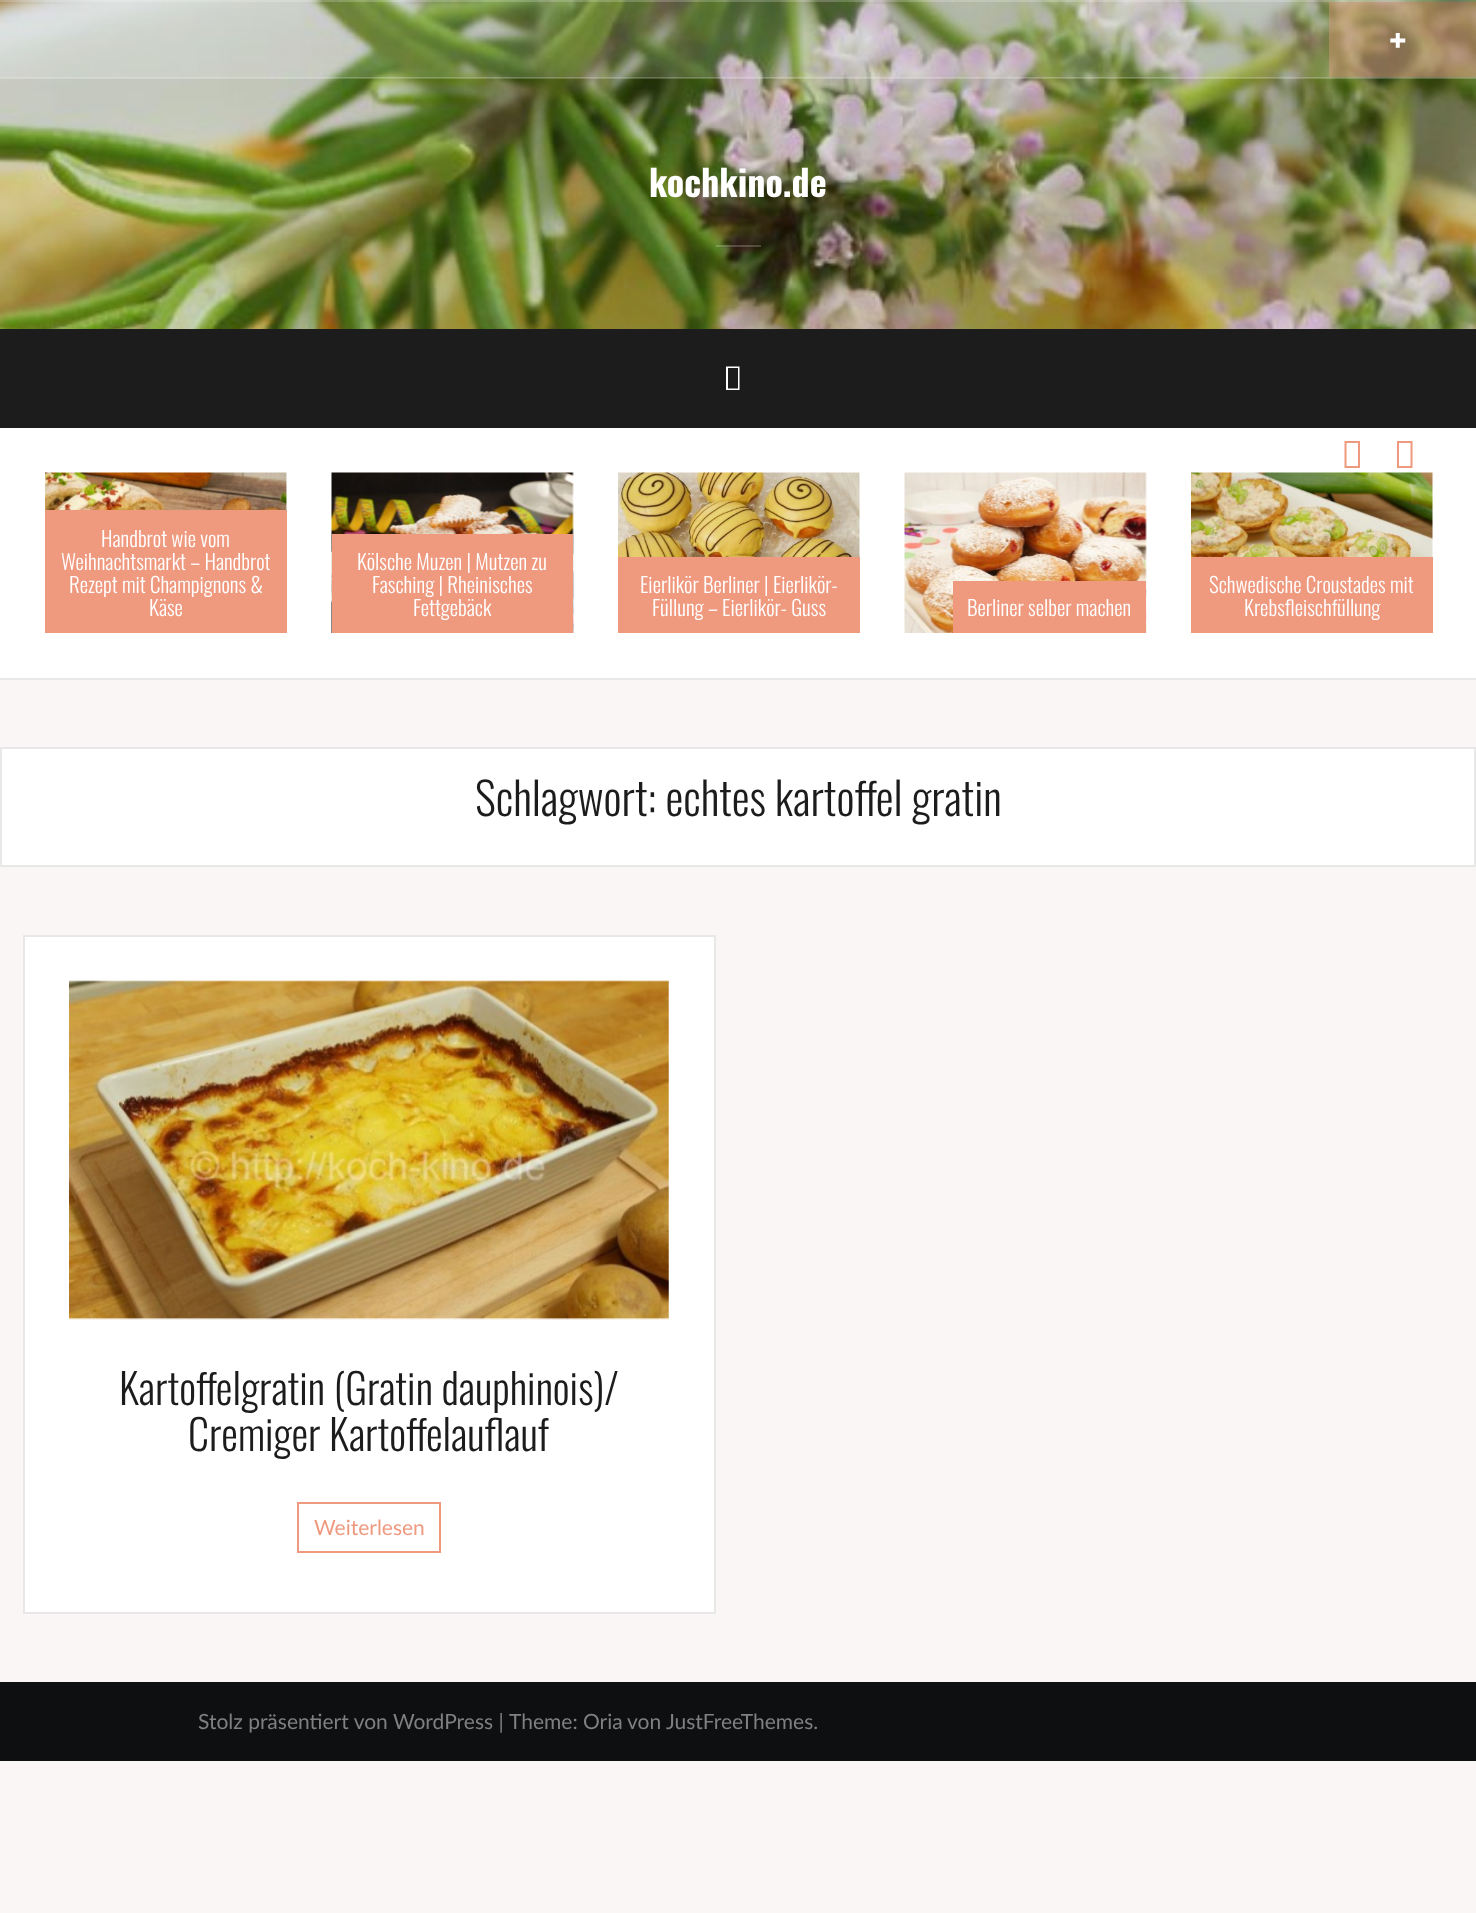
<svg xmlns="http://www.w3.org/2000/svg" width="1476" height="1913">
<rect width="100%" height="100%" fill="#f9f6f5"/>
<image x="0" y="0" width="1476" height="329" href="media/1.png"/>
<rect width="1476" height="78" fill="#ffffff26"/>
<rect width="1476" height="2" fill="#ffffff33"/>
<rect y="77" width="1476" height="2" fill="#ffffff33"/>
<rect x="1329" y="2" width="147" height="75" fill="#ef997f66"/>
<text x="1389" y="51" style="font-family:Noto Sans;font-size:30px;font-weight:900;fill:#fff">+</text>
<text x="649" y="197" style="font-family:Oswald;font-size:36px;font-weight:bold;fill:#fff">kochkino.de</text>
<rect x="716" y="245" width="45" height="2" fill="#ffffff33"/>
<rect y="329" width="1476" height="99" fill="#1c1c1c"/>
<path d="M726 390v-23.5h13.5v23.5zm2-1.5h10v-20.5h-10z" fill="#fff"/>
<rect y="428" width="1476" height="250" fill="#fff"/>
<rect y="678" width="1476" height="2" fill="#e8e8e8"/>
<path d="M1344.5 468v-27h15.5v27zm2-2h11.5v-23h-11.5z" fill="#ef997f"/>
<path d="M1397 468v-27h15.5v27zm2-2h11.5v-23h-11.5z" fill="#ef997f"/>
<image x="45" y="472" width="242" height="38" href="media/2.png"/>
<rect x="45" y="510" width="242" height="123" fill="#ef997f"/>
<text x="101" y="547" style="font-family:Oswald;font-size:21px;font-weight:300;fill:#fff">Handbrot wie vom</text>
<text x="61" y="570" style="font-family:Oswald;font-size:21px;font-weight:300;fill:#fff">Weihnachtsmarkt – Handbrot</text>
<text x="69" y="593" style="font-family:Oswald;font-size:21px;font-weight:300;fill:#fff">Rezept mit Champignons &amp;</text>
<text x="149" y="616" style="font-family:Oswald;font-size:21px;font-weight:300;fill:#fff">Käse</text>
<image x="331" y="472" width="243" height="161" href="media/3.png"/>
<rect x="332" y="534" width="241" height="99" fill="#ef997f"/>
<text x="357" y="570" style="font-family:Oswald;font-size:21px;font-weight:300;fill:#fff">Kölsche Muzen | Mutzen zu</text>
<text x="372" y="593" style="font-family:Oswald;font-size:21px;font-weight:300;fill:#fff">Fasching | Rheinisches</text>
<text x="413" y="616" style="font-family:Oswald;font-size:21px;font-weight:300;fill:#fff">Fettgebäck</text>
<image x="618" y="472" width="242" height="85" href="media/4.png"/>
<rect x="618" y="557" width="242" height="76" fill="#ef997f"/>
<text x="640" y="593" style="font-family:Oswald;font-size:21px;font-weight:300;fill:#fff">Eierlikör Berliner | Eierlikör-</text>
<text x="652" y="616" style="font-family:Oswald;font-size:21px;font-weight:300;fill:#fff">Füllung – Eierlikör- Guss</text>
<image x="904" y="472" width="243" height="161" href="media/5.png"/>
<rect x="953" y="581" width="193" height="52" fill="#ef997f"/>
<text x="967" y="616" style="font-family:Oswald;font-size:21px;font-weight:300;fill:#fff">Berliner selber machen</text>
<image x="1191" y="472" width="242" height="85" href="media/6.png"/>
<rect x="1191" y="557" width="242" height="76" fill="#ef997f"/>
<text x="1209" y="593" style="font-family:Oswald;font-size:21px;font-weight:300;fill:#fff">Schwedische Croustades mit</text>
<text x="1244" y="616" style="font-family:Oswald;font-size:21px;font-weight:300;fill:#fff">Krebsfleischfüllung</text>
<rect x="1" y="748" width="1474" height="118" fill="#fff" stroke="#e8e8e8" stroke-width="2"/>
<text x="475" y="816" style="font-family:Oswald;font-size:45px;font-weight:300;fill:#1c1c1c">Schlagwort: echtes kartoffel gratin</text>
<rect x="24" y="936" width="691" height="677" fill="#fff" stroke="#e8e8e8" stroke-width="2"/>
<image x="69" y="980" width="600" height="340" href="media/7.png"/>
<text x="119" y="1405" style="font-family:Oswald;font-size:42px;font-weight:300;fill:#1c1c1c">Kartoffelgratin (Gratin dauphinois)/</text>
<text x="188" y="1451" style="font-family:Oswald;font-size:42px;font-weight:300;fill:#1c1c1c">Cremiger Kartoffelauflauf</text>
<rect x="298" y="1503" width="142" height="49" fill="none" stroke="#ef997f" stroke-width="2"/>
<text x="314" y="1535" style="font-family:Lato;font-size:21px;fill:#ef997f">Weiterlesen</text>
<rect y="1682" width="1476" height="79" fill="#0d0f10"/>
<text x="198" y="1729" style="font-family:Lato;font-size:21px;fill:#808080">Stolz präsentiert von WordPress |</text>
<text x="509" y="1729" style="font-family:Lato;font-size:21px;fill:#808080">Theme: Oria</text>
<text x="627" y="1729" style="font-family:Lato;font-size:21px;fill:#808080">von JustFreeThemes.</text>
</svg>
